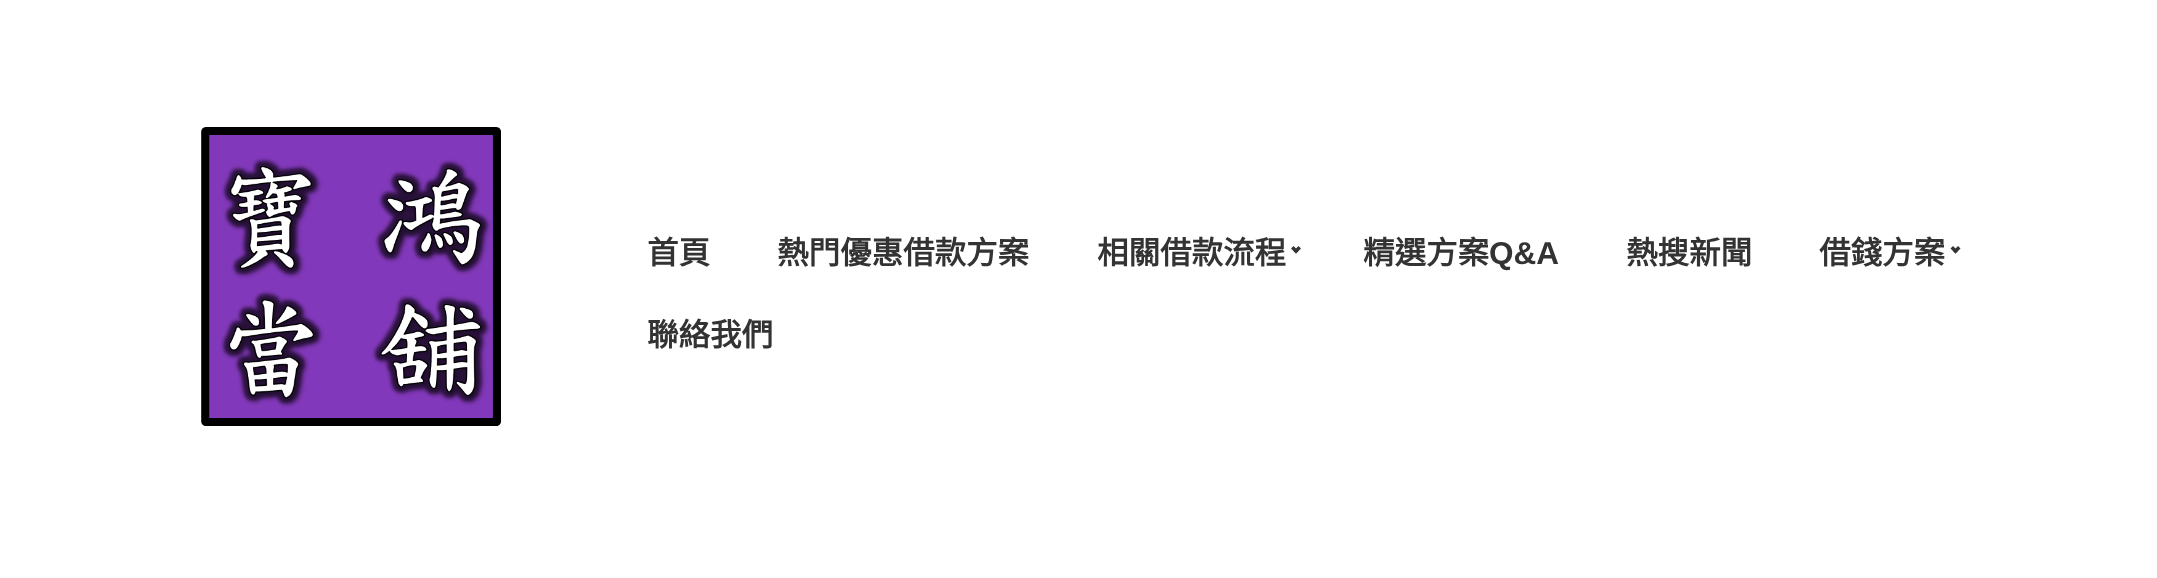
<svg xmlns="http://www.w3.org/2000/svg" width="2157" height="578">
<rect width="100%" height="100%" fill="#fff"/>
<image x="201" y="127" width="300" height="299" href="media/1.png"/>
<text x="647" y="264" style="font-family:Noto Sans CJK TC;font-size:31.5px;font-weight:bold;fill:#333">首頁</text>
<text x="777" y="264" style="font-family:Noto Sans CJK TC;font-size:31.5px;font-weight:bold;fill:#333">熱門優惠借款方案</text>
<text x="1097" y="264" style="font-family:Noto Sans CJK TC;font-size:31.5px;font-weight:bold;fill:#333">相關借款流程</text>
<path d="M1298.5 246l2.5 2.5l-5 5l-2.5-2.5z" fill="#333"/>
<path d="M1293.5 246l5 5l-2.5 2.5l-5-5z" fill="#333"/>
<text x="1363" y="264" style="font-family:Noto Sans CJK TC;font-size:31.5px;font-weight:bold;fill:#333">精選方案</text>
<text x="1489" y="264" style="font-family:Liberation Sans;font-size:31.5px;font-weight:bold;fill:#333">Q&amp;A</text>
<text x="1626" y="264" style="font-family:Noto Sans CJK TC;font-size:31.5px;font-weight:bold;fill:#333">熱搜新聞</text>
<text x="1819" y="264" style="font-family:Noto Sans CJK TC;font-size:31.5px;font-weight:bold;fill:#333">借錢方案</text>
<path d="M1958 246l2.5 2.5l-5 5l-2.5-2.5z" fill="#333"/>
<path d="M1953 246l5 5l-2.5 2.5l-5-5z" fill="#333"/>
<text x="647" y="346" style="font-family:Noto Sans CJK TC;font-size:31.5px;font-weight:bold;fill:#333">聯絡我們</text>
</svg>
